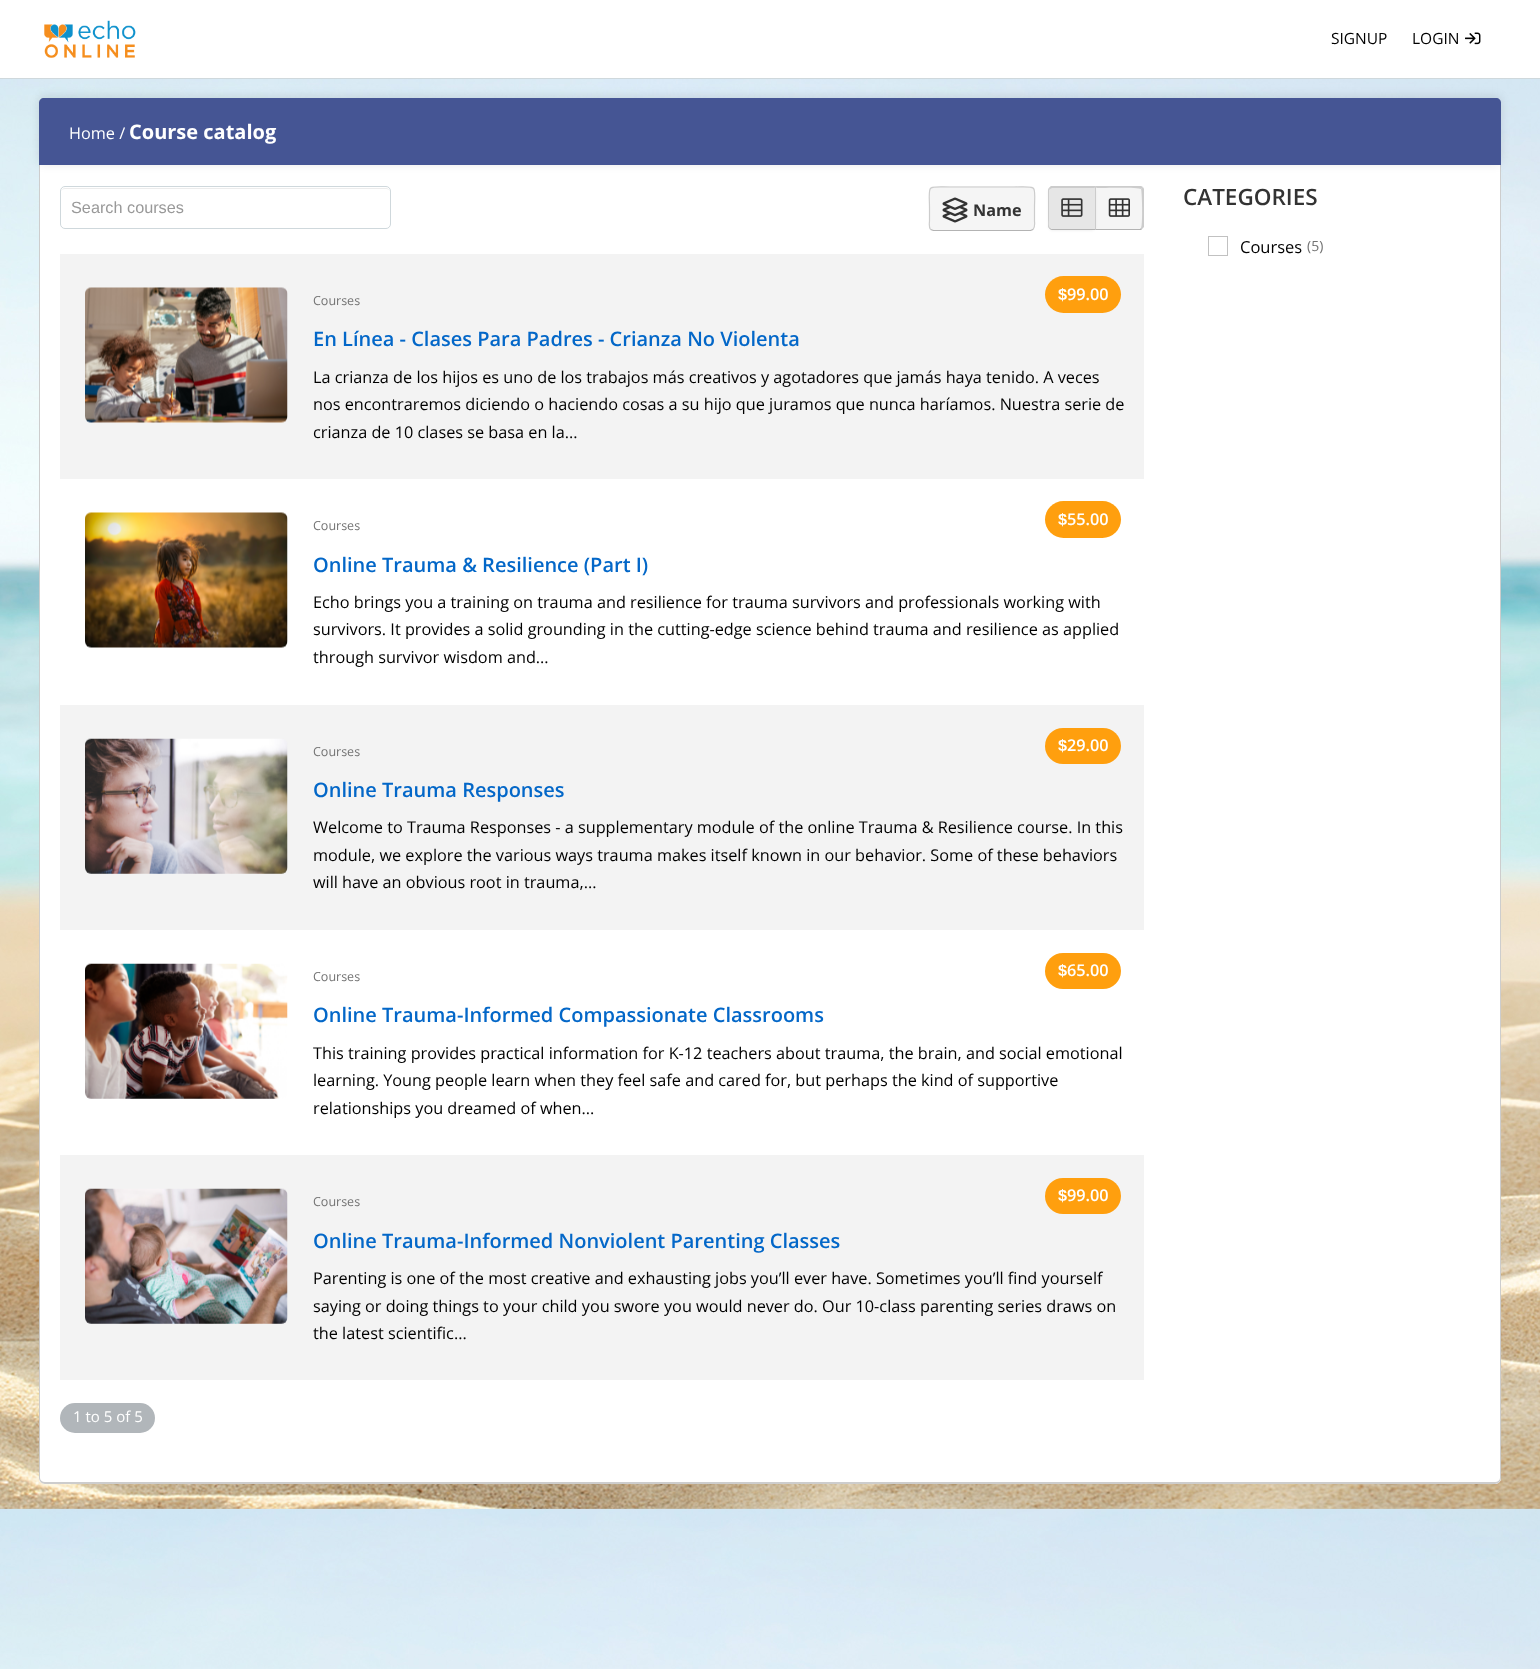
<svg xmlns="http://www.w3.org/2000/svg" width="1540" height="1669">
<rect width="100%" height="100%" fill="#fff"/>
<image x="0" y="79" width="1540" height="1590" href="media/1.png"/>
<rect y="78" width="1540" height="1" fill="#cfd8dc"/>
<image x="44" y="20" width="92" height="38" href="media/2.png"/>
<text x="1331" y="44" style="font-family:Open Sans;font-size:15.5px;fill:#000">SIGNUP</text>
<text x="1412" y="44" style="font-family:Open Sans;font-size:15.5px;fill:#000">LOGIN</text>
<image x="1465" y="32" width="16" height="13" href="media/3.png"/>
<path d="M39 165h1462v1313c0 3.5-2.5 6-6 6h-1450c-3.5 0-6-2.5-6-6z" fill="#fff"/>
<path d="M39 165h1462v1313c0 3-3 6-6 6h-1450c-3 0-6-3-6-6zm1 0h1460v1313c0 2-2 4-5 4h-1450c-3 0-5-2-5-4z" fill="#cdcdcd" fill-rule="evenodd"/>
<rect x="39" y="96" width="1462" height="68" rx="5" fill="#0000001a" filter="blur(5px)"/>
<path d="M44 98h1452c3 0 5 2 5 5v62h-1462v-62c0-3 2-5 5-5z" fill="#455594"/>
<text x="69" y="139" style="font-family:Open Sans;font-size:16.25px;fill:#fff">Home /</text>
<text x="129" y="139" style="font-family:Open Sans;font-size:20px;font-weight:bold;fill:#fff">Course catalog</text>
<path d="M65 189h321c2 0 4 1 4 3c0-2-2-4-4-4h-321c-2 0-4 2-4 4c0-2 2-3 4-3z" fill="#ececec"/>
<rect x="60.5" y="186.5" width="330" height="42" rx="4.5" fill="none" stroke="#cfd8dc"/>
<text x="71" y="213" style="font-family:Liberation Sans;font-size:16.25px;fill:#999">Search courses</text>
<rect x="929" y="186" width="106" height="45" rx="5" fill="#f5f5f5"/>
<path d="M1033 229.5l-2.5 1h-97l-3-1" fill="none" stroke="#b3b3b3" stroke-width="1.2"/>
<path d="M930.5 229.5c-2-2.5-1-6.5-1-9v-11.5c0-25-4.5-22 20.5-22h64c25 0 20.5-3 20.5 22v11.5c0 2.5 1 6.5-1.5 9" fill="none" stroke="#ccc" stroke-width="1.2"/>
<image x="942" y="197" width="26" height="26" href="media/4.png"/>
<text x="973" y="216" style="font-family:Open Sans;font-size:16.25px;font-weight:bold;fill:#333">Name</text>
<path d="M1095 186h44c3 0 5 2 5 5v34c0 3-2 5-5 5h-44z" fill="#f5f5f5"/>
<path d="M1095 186h46l2 1l-2 2c-2-2-39-1-44-1z" fill="#ccc"/>
<path d="M1144 227l-2 2l-1-1c2-3 1-38 0-39l2-2l1 2z" fill="#ccc"/>
<path d="M1139 230c1 0 3 0 3-1l-1-1l-1 1h-44l-1 1z" fill="#b3b3b3"/>
<path d="M1096 188h1l-2-2v44l1-1z" fill="#ccc"/>
<rect x="1048" y="188" width="48" height="43" rx="5" fill="#0000000d" filter="blur(1px)"/>
<path d="M1053 186h43v44h-43c-3 0-5-2-5-5v-34c0-3 2-5 5-5z" fill="#e6e6e6"/>
<path d="M1052 188l-2 1l-1-1l2-2h45l-2 2z" fill="#ccc"/>
<path d="M1096 186v44l-1-1v-41h-1z" fill="#ccc"/>
<path d="M1052 230h44l-1-1h-44l-1-1h-1c1 1 2 2 3 2z" fill="#b3b3b3"/>
<path d="M1049 228c-1 0-1-2-1-3v-34c0-1 0-2 1-3l1 1l-1 1v29c0 2-1 7 1 9z" fill="#ccc"/>
<image x="1061" y="198" width="22" height="19" href="media/5.png"/>
<image x="1108" y="198" width="22" height="19" href="media/6.png"/>
<rect x="60" y="254" width="1084" height="225" fill="#f3f3f3"/>
<image x="85" y="287" width="203" height="136" href="media/7.png"/>
<text x="313" y="305" style="font-family:Open Sans;font-size:12.5px;fill:#737373">Courses</text>
<rect x="1045" y="276" width="76" height="37" rx="18.5" fill="#ff9f0e"/>
<text x="1058" y="300" style="font-family:Liberation Sans;font-size:16.25px;font-weight:bold;fill:#fff">$</text>
<text x="1067" y="300" style="font-family:Open Sans;font-size:16.25px;font-weight:600;fill:#fff">99.00</text>
<text x="313" y="346" style="font-family:Open Sans;font-size:20px;font-weight:600;fill:#0367c8">En Línea - Clases Para Padres - Crianza No Violenta</text>
<text x="313" y="383" style="font-family:Open Sans;font-size:16.25px;fill:#000">La crianza de los hijos es uno de los trabajos más creativos y agotadores que jamás haya tenido. A veces</text>
<text x="313" y="410" style="font-family:Open Sans;font-size:16.25px;fill:#000">nos encontraremos diciendo o haciendo cosas a su hijo que juramos que nunca haríamos. Nuestra serie de</text>
<text x="313" y="438" style="font-family:Open Sans;font-size:16.25px;fill:#000">crianza de 10 clases se basa en la...</text>
<image x="85" y="512" width="203" height="136" href="media/8.png"/>
<text x="313" y="530" style="font-family:Open Sans;font-size:12.5px;fill:#737373">Courses</text>
<rect x="1045" y="501" width="76" height="37" rx="18.5" fill="#ff9f0e"/>
<text x="1058" y="525" style="font-family:Liberation Sans;font-size:16.25px;font-weight:bold;fill:#fff">$</text>
<text x="1067" y="525" style="font-family:Open Sans;font-size:16.25px;font-weight:600;fill:#fff">55.00</text>
<text x="313" y="572" style="font-family:Open Sans;font-size:20px;font-weight:600;fill:#0367c8">Online Trauma &amp; Resilience (Part I)</text>
<text x="313" y="608" style="font-family:Open Sans;font-size:16.25px;fill:#000">Echo brings you a training on trauma and resilience for trauma survivors and professionals working with</text>
<text x="313" y="635" style="font-family:Open Sans;font-size:16.25px;fill:#000">survivors. It provides a solid grounding in the cutting-edge science behind trauma and resilience as applied</text>
<text x="313" y="663" style="font-family:Open Sans;font-size:16.25px;fill:#000">through survivor wisdom and...</text>
<rect x="60" y="705" width="1084" height="225" fill="#f3f3f3"/>
<image x="85" y="738" width="203" height="136" href="media/9.png"/>
<text x="313" y="756" style="font-family:Open Sans;font-size:12.5px;fill:#737373">Courses</text>
<rect x="1045" y="728" width="76" height="36" rx="18" fill="#ff9f0e"/>
<text x="1058" y="751" style="font-family:Liberation Sans;font-size:16.25px;font-weight:bold;fill:#fff">$</text>
<text x="1067" y="751" style="font-family:Open Sans;font-size:16.25px;font-weight:600;fill:#fff">29.00</text>
<text x="313" y="797" style="font-family:Open Sans;font-size:20px;font-weight:600;fill:#0367c8">Online Trauma Responses</text>
<text x="313" y="833" style="font-family:Open Sans;font-size:16.25px;fill:#000">Welcome to Trauma Responses - a supplementary module of the online Trauma &amp; Resilience course. In this</text>
<text x="313" y="861" style="font-family:Open Sans;font-size:16.25px;fill:#000">module, we explore the various ways trauma makes itself known in our behavior. Some of these behaviors</text>
<text x="313" y="888" style="font-family:Open Sans;font-size:16.25px;fill:#000">will have an obvious root in trauma,...</text>
<image x="85" y="963" width="203" height="136" href="media/10.png"/>
<text x="313" y="981" style="font-family:Open Sans;font-size:12.5px;fill:#737373">Courses</text>
<rect x="1045" y="953" width="76" height="36" rx="18" fill="#ff9f0e"/>
<text x="1058" y="976" style="font-family:Liberation Sans;font-size:16.25px;font-weight:bold;fill:#fff">$</text>
<text x="1067" y="976" style="font-family:Open Sans;font-size:16.25px;font-weight:600;fill:#fff">65.00</text>
<text x="313" y="1022" style="font-family:Open Sans;font-size:20px;font-weight:600;fill:#0367c8">Online Trauma-Informed Compassionate Classrooms</text>
<text x="313" y="1059" style="font-family:Open Sans;font-size:16.25px;fill:#000">This training provides practical information for K-12 teachers about trauma, the brain, and social emotional</text>
<text x="313" y="1086" style="font-family:Open Sans;font-size:16.25px;fill:#000">learning. Young people learn when they feel safe and cared for, but perhaps the kind of supportive</text>
<text x="313" y="1114" style="font-family:Open Sans;font-size:16.25px;fill:#000">relationships you dreamed of when...</text>
<rect x="60" y="1155" width="1084" height="225" fill="#f3f3f3"/>
<image x="85" y="1188" width="203" height="136" href="media/11.png"/>
<text x="313" y="1206" style="font-family:Open Sans;font-size:12.5px;fill:#737373">Courses</text>
<rect x="1045" y="1178" width="76" height="36" rx="18" fill="#ff9f0e"/>
<text x="1058" y="1201" style="font-family:Liberation Sans;font-size:16.25px;font-weight:bold;fill:#fff">$</text>
<text x="1067" y="1201" style="font-family:Open Sans;font-size:16.25px;font-weight:600;fill:#fff">99.00</text>
<text x="313" y="1248" style="font-family:Open Sans;font-size:20px;font-weight:600;fill:#0367c8">Online Trauma-Informed Nonviolent Parenting Classes</text>
<text x="313" y="1284" style="font-family:Open Sans;font-size:16.25px;fill:#000">Parenting is one of the most creative and exhausting jobs you’ll ever have. Sometimes you’ll find yourself</text>
<text x="313" y="1312" style="font-family:Open Sans;font-size:16.25px;fill:#000">saying or doing things to your child you swore you would never do. Our 10-class parenting series draws on</text>
<text x="313" y="1339" style="font-family:Open Sans;font-size:16.25px;fill:#000">the latest scientific...</text>
<rect x="60" y="1403" width="95" height="30" rx="15" fill="#b1b6ba"/>
<text x="73" y="1422" style="font-family:Open Sans;font-size:15px;fill:#fff">1 to 5 of 5</text>
<text x="1183" y="205" style="font-family:Open Sans;font-size:22.5px;font-weight:600;fill:#333">CATEGORIES</text>
<rect x="1208.5" y="236.5" width="19" height="19" fill="none" stroke="#c1c1c1"/>
<text x="1240" y="253" style="font-family:Open Sans;font-size:16.5px;fill:#000">Courses</text>
<text x="1307" y="251" style="font-family:Open Sans;font-size:14px;fill:#737373">(5)</text>
</svg>
